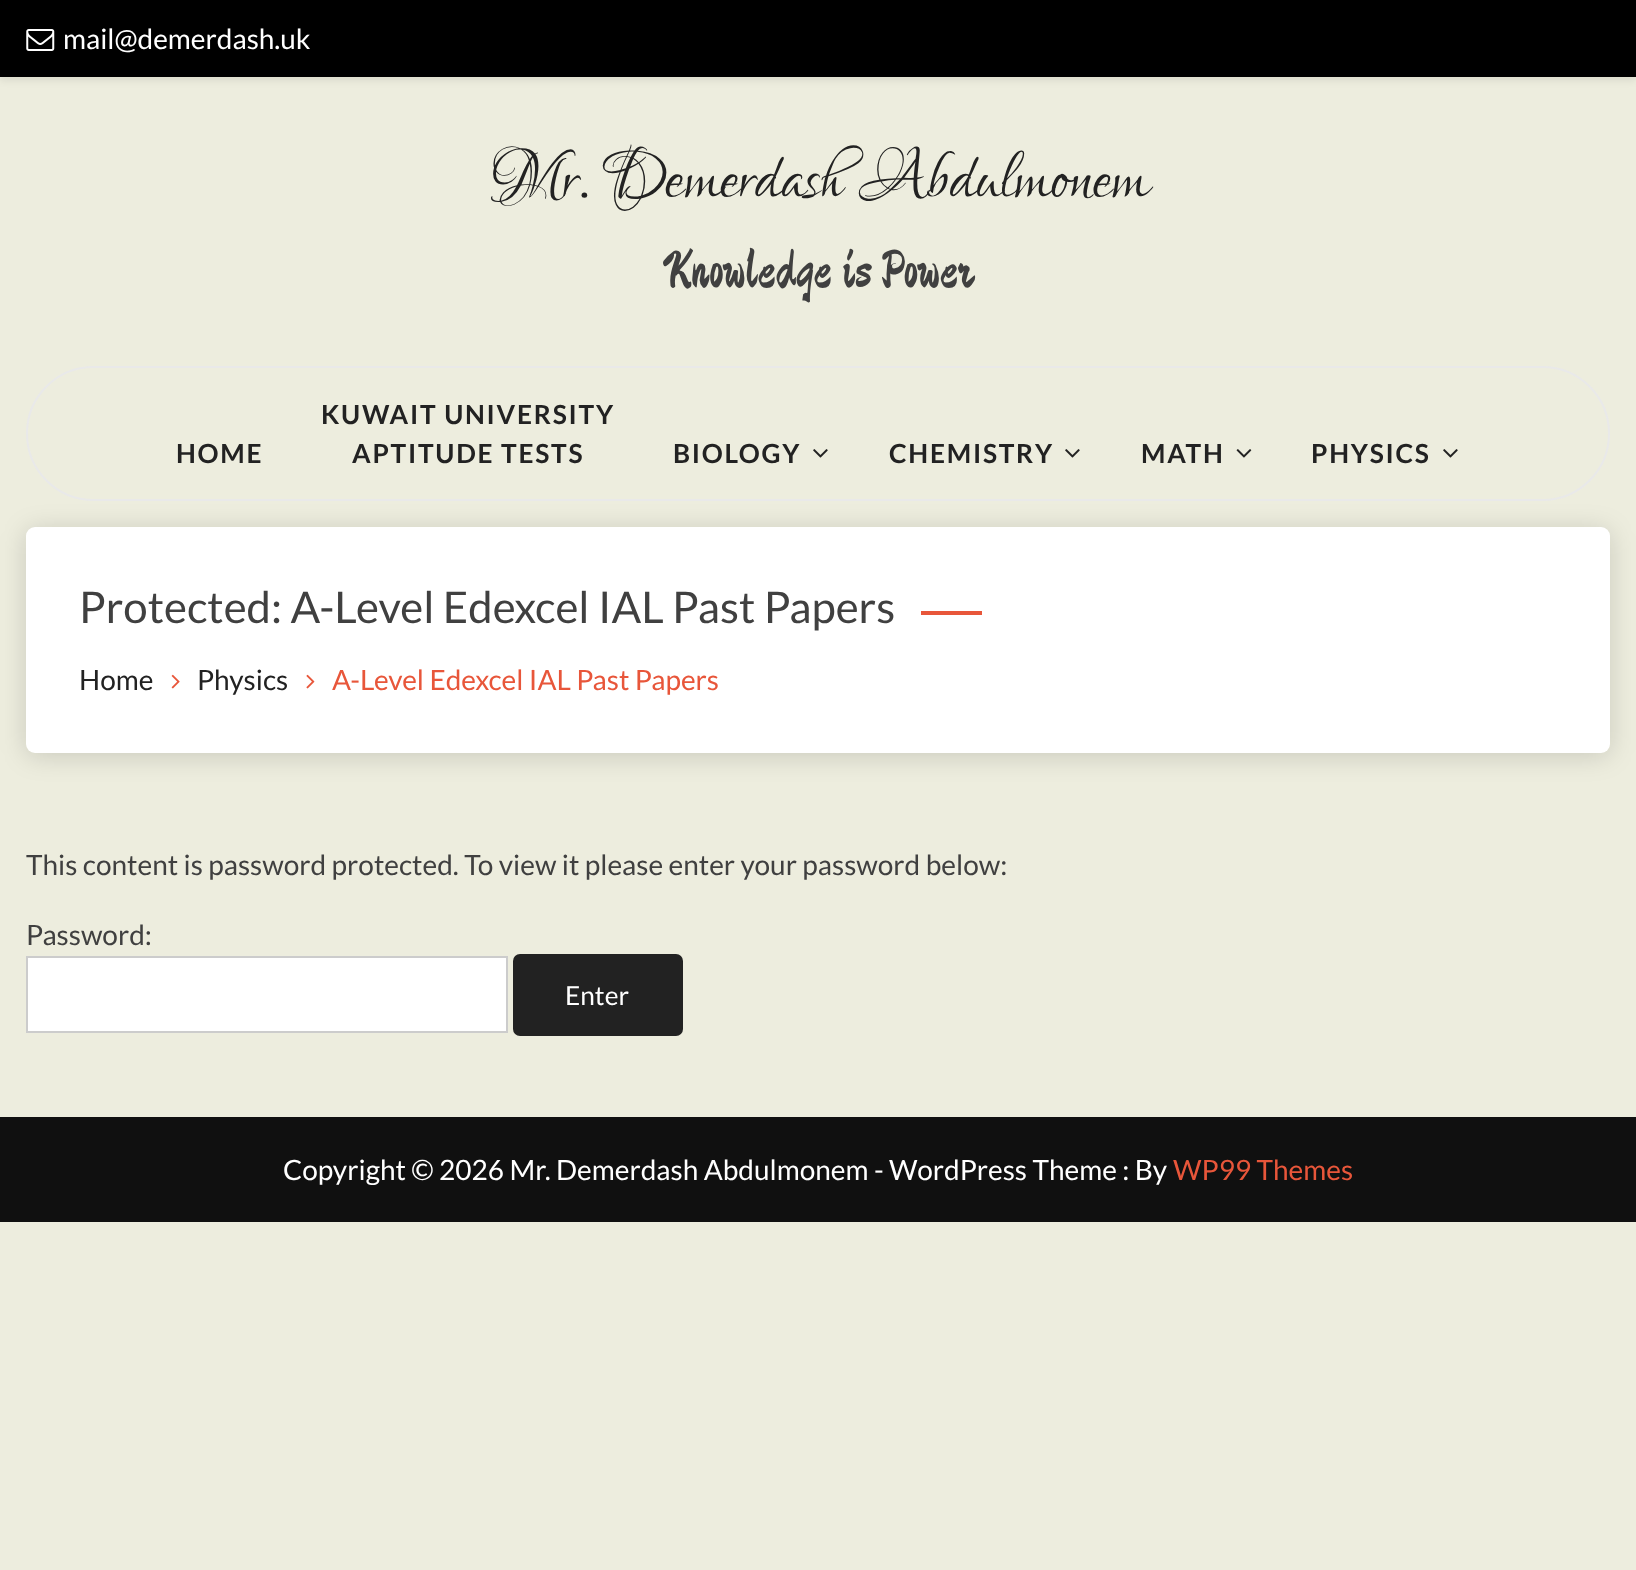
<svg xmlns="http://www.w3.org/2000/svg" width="1636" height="1570">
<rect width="100%" height="100%" fill="#ededde"/>
<rect y="4" width="1636" height="77" fill="#00000012" filter="blur(3.5px)"/>
<rect width="1636" height="77" fill="#000"/>
<image x="26" y="29" width="29" height="22" href="media/1.png"/>
<text x="63" y="49" style="font-family:Lato;font-size:28px;fill:#fff">mail@demerdash.uk</text>
<text x="489" y="196" style="font-family:Lovers Quarrel;font-size:87.5px;fill:#222">Mr. Demerdash Abdulmonem</text>
<text x="663" y="287" style="font-family:Devonshire;font-size:52.5px;fill:#404040">Knowledge is Power</text>
<rect x="27" y="367" width="1582" height="133" rx="66.5" fill="none" stroke="#e9e9e9" stroke-width="2"/>
<text x="176" y="463" style="font-family:Lato;font-size:26.25px;font-weight:bold;letter-spacing:1.75px;fill:#222">HOME</text>
<text x="321" y="424" style="font-family:Lato;font-size:26.25px;font-weight:bold;letter-spacing:1.75px;fill:#222">KUWAIT UNIVERSITY</text>
<text x="352" y="463" style="font-family:Lato;font-size:26.25px;font-weight:bold;letter-spacing:1.75px;fill:#222">APTITUDE TESTS</text>
<text x="673" y="463" style="font-family:Lato;font-size:26.25px;font-weight:bold;letter-spacing:1.75px;fill:#222">BIOLOGY</text>
<image x="813" y="449" width="15" height="9" href="media/2.png"/>
<text x="889" y="463" style="font-family:Lato;font-size:26.25px;font-weight:bold;letter-spacing:1.75px;fill:#222">CHEMISTRY</text>
<image x="1065" y="449" width="15" height="9" href="media/2.png"/>
<text x="1141" y="463" style="font-family:Lato;font-size:26.25px;font-weight:bold;letter-spacing:1.75px;fill:#222">MATH</text>
<image x="1236" y="449" width="16" height="9" href="media/3.png"/>
<text x="1311" y="463" style="font-family:Lato;font-size:26.25px;font-weight:bold;letter-spacing:1.75px;fill:#222">PHYSICS</text>
<image x="1443" y="449" width="15" height="9" href="media/2.png"/>
<rect x="26" y="530" width="1584" height="226" rx="9" fill="#00000026" filter="blur(13px)"/>
<rect x="26" y="527" width="1584" height="226" rx="9" fill="#fff"/>
<text x="79" y="623" style="font-family:Lato;font-size:43.75px;fill:#404040">Protected: A-Level Edexcel IAL Past Papers</text>
<rect x="921" y="611" width="61" height="4" fill="#e8563a"/>
<text x="79" y="690" style="font-family:Lato;font-size:28px;fill:#222">Home</text>
<image x="171" y="674" width="9" height="15" href="media/4.png"/>
<text x="197" y="690" style="font-family:Lato;font-size:28px;fill:#222">Physics</text>
<image x="306" y="674" width="9" height="15" href="media/5.png"/>
<text x="332" y="690" style="font-family:Lato;font-size:28px;fill:#e8563a">A-Level Edexcel IAL Past Papers</text>
<text x="26" y="875" style="font-family:Lato;font-size:28px;fill:#404040">This content is password protected. To view it please enter your password below:</text>
<text x="26" y="945" style="font-family:Lato;font-size:28px;fill:#404040">Password:</text>
<rect x="27" y="957" width="480" height="75" fill="#fff" stroke="#ccc" stroke-width="2"/>
<rect x="513" y="954" width="170" height="82" rx="7" fill="#222"/>
<text x="565" y="1005" style="font-family:Lato;font-size:26.25px;fill:#fff">Enter</text>
<rect y="1117" width="1636" height="105" fill="#101010"/>
<text x="283" y="1180" style="font-family:Lato;font-size:28px;fill:#fff">Copyright © 2026 Mr. Demerdash Abdulmonem - WordPress Theme : By</text>
<text x="1173" y="1180" style="font-family:Lato;font-size:28px;fill:#e8563a">WP99 Themes</text>
</svg>
